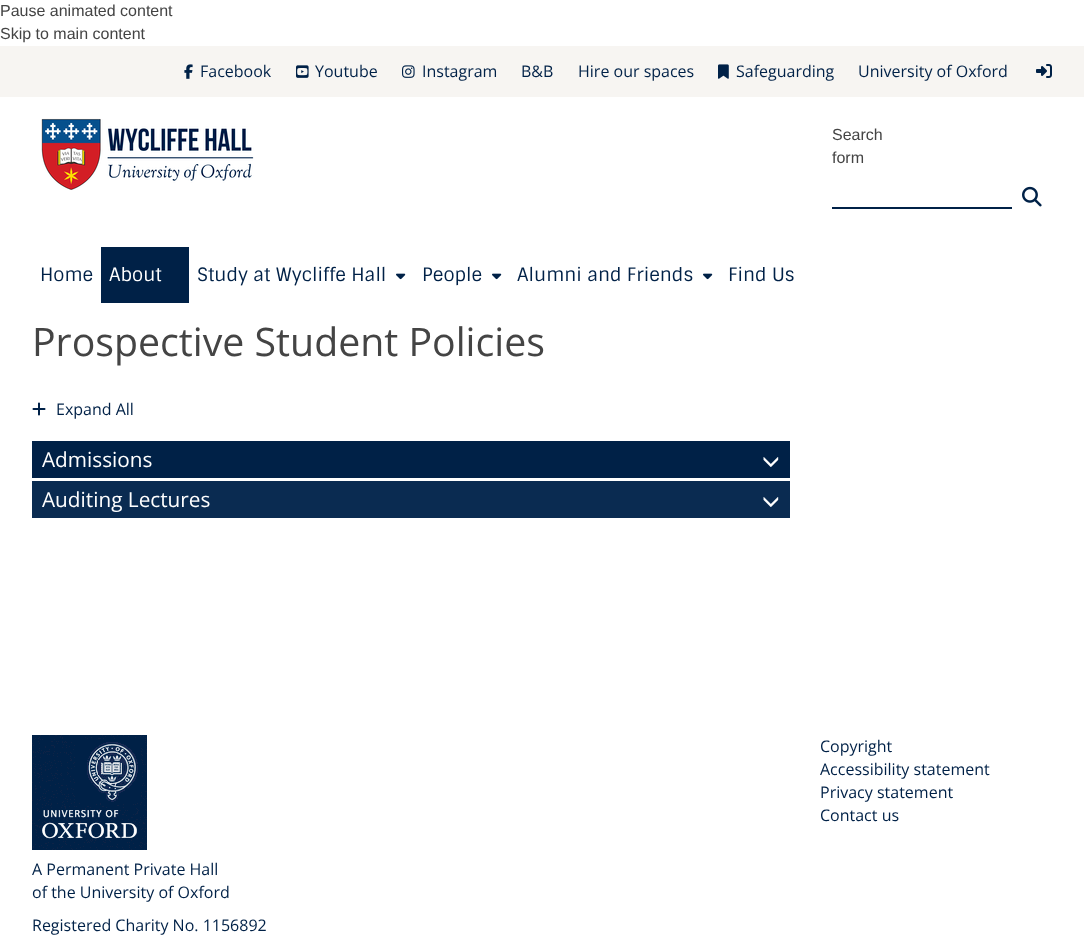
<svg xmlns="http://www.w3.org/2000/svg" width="1084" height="947">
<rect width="100%" height="100%" fill="#fff"/>
<text x="0" y="16" style="font-family:Liberation Sans;font-size:16px;fill:#444">Pause animated content</text>
<text x="0" y="39" style="font-family:Liberation Sans;font-size:16px;fill:#444">Skip to main content</text>
<rect y="46" width="1084" height="51" fill="#f7f5f2"/>
<image x="184" y="64" width="9" height="15" href="media/1.png"/>
<text x="200" y="77" style="font-family:Open Sans;font-size:16px;fill:#002147">Facebook</text>
<image x="296" y="65" width="13" height="13" href="media/2.png"/>
<text x="315" y="77" style="font-family:Open Sans;font-size:16px;fill:#002147">Youtube</text>
<image x="402" y="65" width="13" height="13" href="media/3.png"/>
<text x="422" y="77" style="font-family:Open Sans;font-size:16px;fill:#002147">Instagram</text>
<text x="521" y="77" style="font-family:Open Sans;font-size:16px;fill:#002147">B&amp;B</text>
<text x="578" y="77" style="font-family:Open Sans;font-size:16px;fill:#002147">Hire our spaces</text>
<image x="718" y="64" width="11" height="15" href="media/4.png"/>
<text x="736" y="77" style="font-family:Open Sans;font-size:16px;fill:#002147">Safeguarding</text>
<text x="858" y="77" style="font-family:Open Sans;font-size:16px;fill:#002147">University of Oxford</text>
<image x="1036" y="64" width="16" height="14" href="media/5.png"/>
<image x="41" y="118" width="213" height="72" href="media/6.png"/>
<text x="832" y="140" style="font-family:Liberation Sans;font-size:16px;fill:#444">Search</text>
<text x="832" y="163" style="font-family:Liberation Sans;font-size:16px;fill:#444">form</text>
<image x="1022" y="186" width="20" height="21" href="media/7.png"/>
<rect x="832" y="207" width="180" height="2" fill="#002147"/>
<text x="40" y="281" style="font-family:Sintony;font-size:18.4px;fill:#002147">Home</text>
<rect x="101" y="247" width="88" height="56" fill="#002147"/>
<text x="109" y="281" style="font-family:Sintony;font-size:18.4px;fill:#fff">About</text>
<text x="197" y="281" style="font-family:Sintony;font-size:18.4px;fill:#002147">Study at Wycliffe Hall</text>
<image x="396" y="273" width="10" height="7" href="media/8.png"/>
<text x="422" y="281" style="font-family:Sintony;font-size:18.4px;fill:#002147">People</text>
<image x="492" y="273" width="10" height="7" href="media/8.png"/>
<text x="517" y="281" style="font-family:Sintony;font-size:18.4px;fill:#002147">Alumni and Friends</text>
<image x="703" y="273" width="10" height="7" href="media/8.png"/>
<text x="728" y="281" style="font-family:Sintony;font-size:18.4px;fill:#002147">Find Us</text>
<text x="32" y="356" style="font-family:Open Sans;font-size:39.25px;fill:#444">Prospective Student Policies</text>
<image x="32" y="402" width="14" height="14" href="media/9.png"/>
<text x="56" y="415" style="font-family:Open Sans;font-size:16px;fill:#002147">Expand All</text>
<rect x="32" y="441" width="758" height="37" fill="#002147"/>
<text x="42" y="467" style="font-family:Open Sans;font-size:20.75px;fill:#fff">Admissions</text>
<image x="763" y="457" width="16" height="10" href="media/10.png"/>
<rect x="32" y="481" width="758" height="37" fill="#0a2b51"/>
<text x="42" y="507" style="font-family:Open Sans;font-size:20.75px;fill:#fff">Auditing Lectures</text>
<image x="763" y="497" width="16" height="10" href="media/11.png"/>
<text x="820" y="752" style="font-family:Open Sans;font-size:16px;fill:#002147">Copyright</text>
<text x="820" y="775" style="font-family:Open Sans;font-size:16px;fill:#002147">Accessibility statement</text>
<text x="820" y="798" style="font-family:Open Sans;font-size:16px;fill:#002147">Privacy statement</text>
<text x="820" y="821" style="font-family:Open Sans;font-size:16px;fill:#002147">Contact us</text>
<image x="32" y="735" width="115" height="115" href="media/12.png"/>
<text x="32" y="875" style="font-family:Open Sans;font-size:16px;fill:#002147">A Permanent Private Hall</text>
<text x="32" y="898" style="font-family:Open Sans;font-size:16px;fill:#002147">of the University of Oxford</text>
<text x="32" y="931" style="font-family:Open Sans;font-size:16px;fill:#002147">Registered Charity No. 1156892</text>
</svg>
